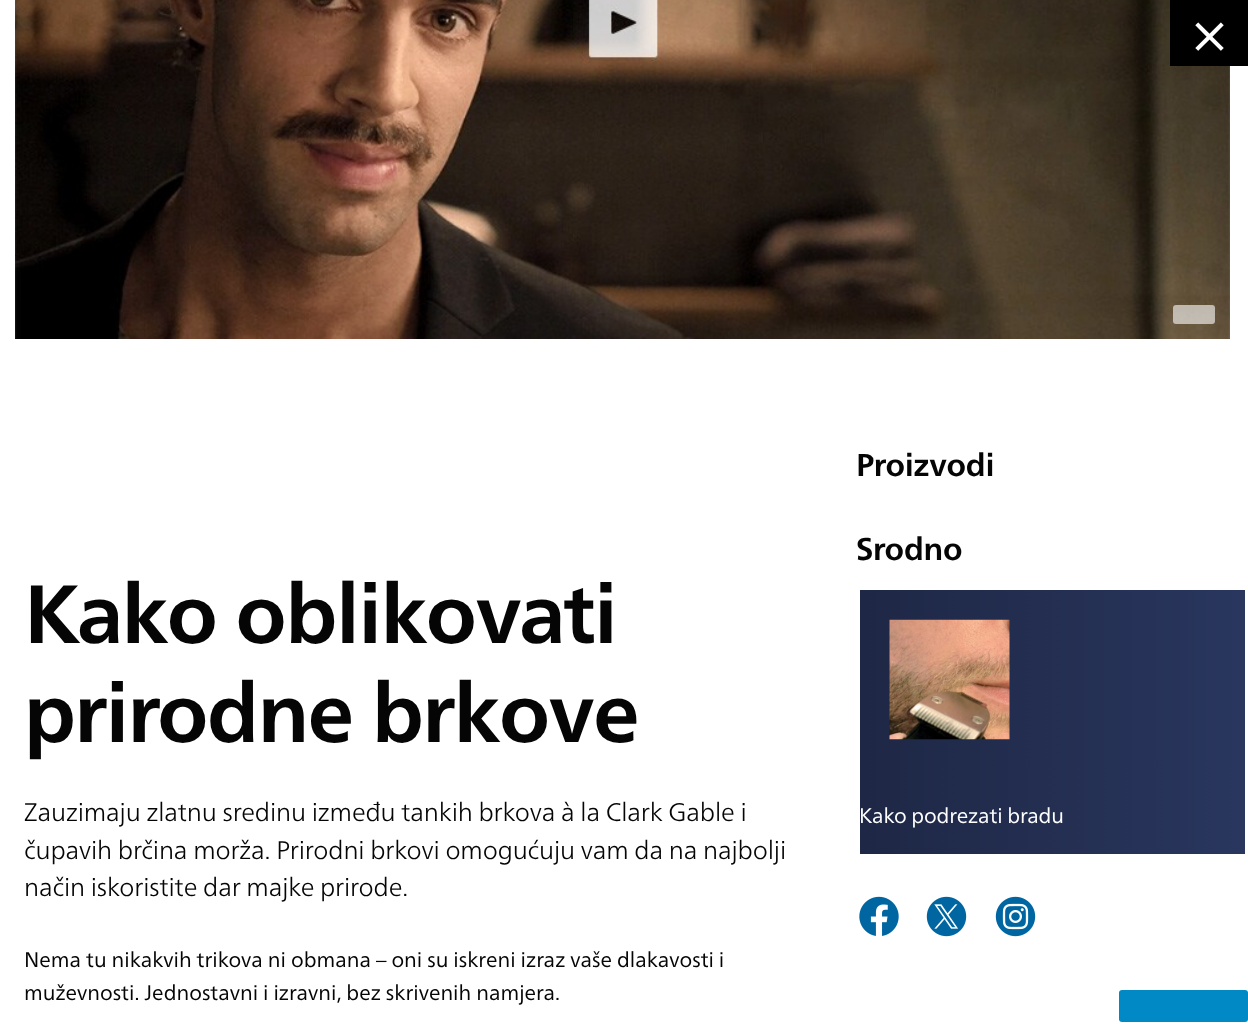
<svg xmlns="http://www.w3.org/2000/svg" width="1248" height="1030">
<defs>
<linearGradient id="g1" gradientUnits="userSpaceOnUse" x1="860" y1="722" x2="1245" y2="722"><stop offset="0" stop-color="#1e2745"/><stop offset="1" stop-color="#29365e"/></linearGradient>
</defs>
<rect width="100%" height="100%" fill="#fff"/>
<image x="15" y="0" width="1215" height="339" href="media/1.png"/>
<rect x="1170" width="78" height="66" fill="#000"/>
<text x="1193" y="51" style="font-family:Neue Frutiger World;font-size:57px;fill:#fff">×</text>
<rect x="1173" y="305" width="42" height="19" rx="3" fill="#ffffff99"/>
<text x="24" y="643" style="font-family:Neue Frutiger World;font-size:82.5px;font-weight:bold;letter-spacing:-1.5px;fill:#050505">Kako oblikovati</text>
<text x="24" y="742" style="font-family:Neue Frutiger World;font-size:82.5px;font-weight:bold;letter-spacing:-1.5px;fill:#050505">prirodne brkove</text>
<text x="24" y="821" style="font-family:Neue Frutiger World;font-size:25.5px;font-weight:300;letter-spacing:-0.15px;fill:#050505">Zauzimaju zlatnu sredinu između tankih brkova à la Clark Gable i</text>
<text x="24" y="859" style="font-family:Neue Frutiger World;font-size:25.5px;font-weight:300;letter-spacing:-0.15px;fill:#050505">čupavih brčina morža. Prirodni brkovi omogućuju vam da na najbolji</text>
<text x="24" y="896" style="font-family:Neue Frutiger World;font-size:25.5px;font-weight:300;letter-spacing:-0.15px;fill:#050505">način iskoristite dar majke prirode.</text>
<text x="24" y="967" style="font-family:Neue Frutiger World;font-size:21px;fill:#050505">Nema tu nikakvih trikova ni obmana – oni su iskreni izraz vaše dlakavosti i</text>
<text x="24" y="1000" style="font-family:Neue Frutiger World;font-size:21px;fill:#050505">muževnosti. Jednostavni i izravni, bez skrivenih namjera.</text>
<text x="856" y="476" style="font-family:Neue Frutiger World;font-size:31.5px;font-weight:bold;letter-spacing:-0.25px;fill:#050505">Proizvodi</text>
<text x="856" y="560" style="font-family:Neue Frutiger World;font-size:31.5px;font-weight:bold;letter-spacing:-0.25px;fill:#050505">Srodno</text>
<rect x="860" y="590" width="385" height="264" fill="url(#g1)"/>
<image x="889" y="619" width="121" height="121" href="media/2.png"/>
<text x="859" y="823" style="font-family:Neue Frutiger World;font-size:21px;letter-spacing:-0.15px;fill:#fff">Kako podrezati bradu</text>
<image x="859" y="896" width="40" height="40" href="media/3.png"/>
<image x="926" y="896" width="41" height="41" href="media/4.png"/>
<image x="995" y="896" width="41" height="41" href="media/5.png"/>
<rect x="1119" y="990" width="129" height="32" rx="3" fill="#0089c4"/>
</svg>
